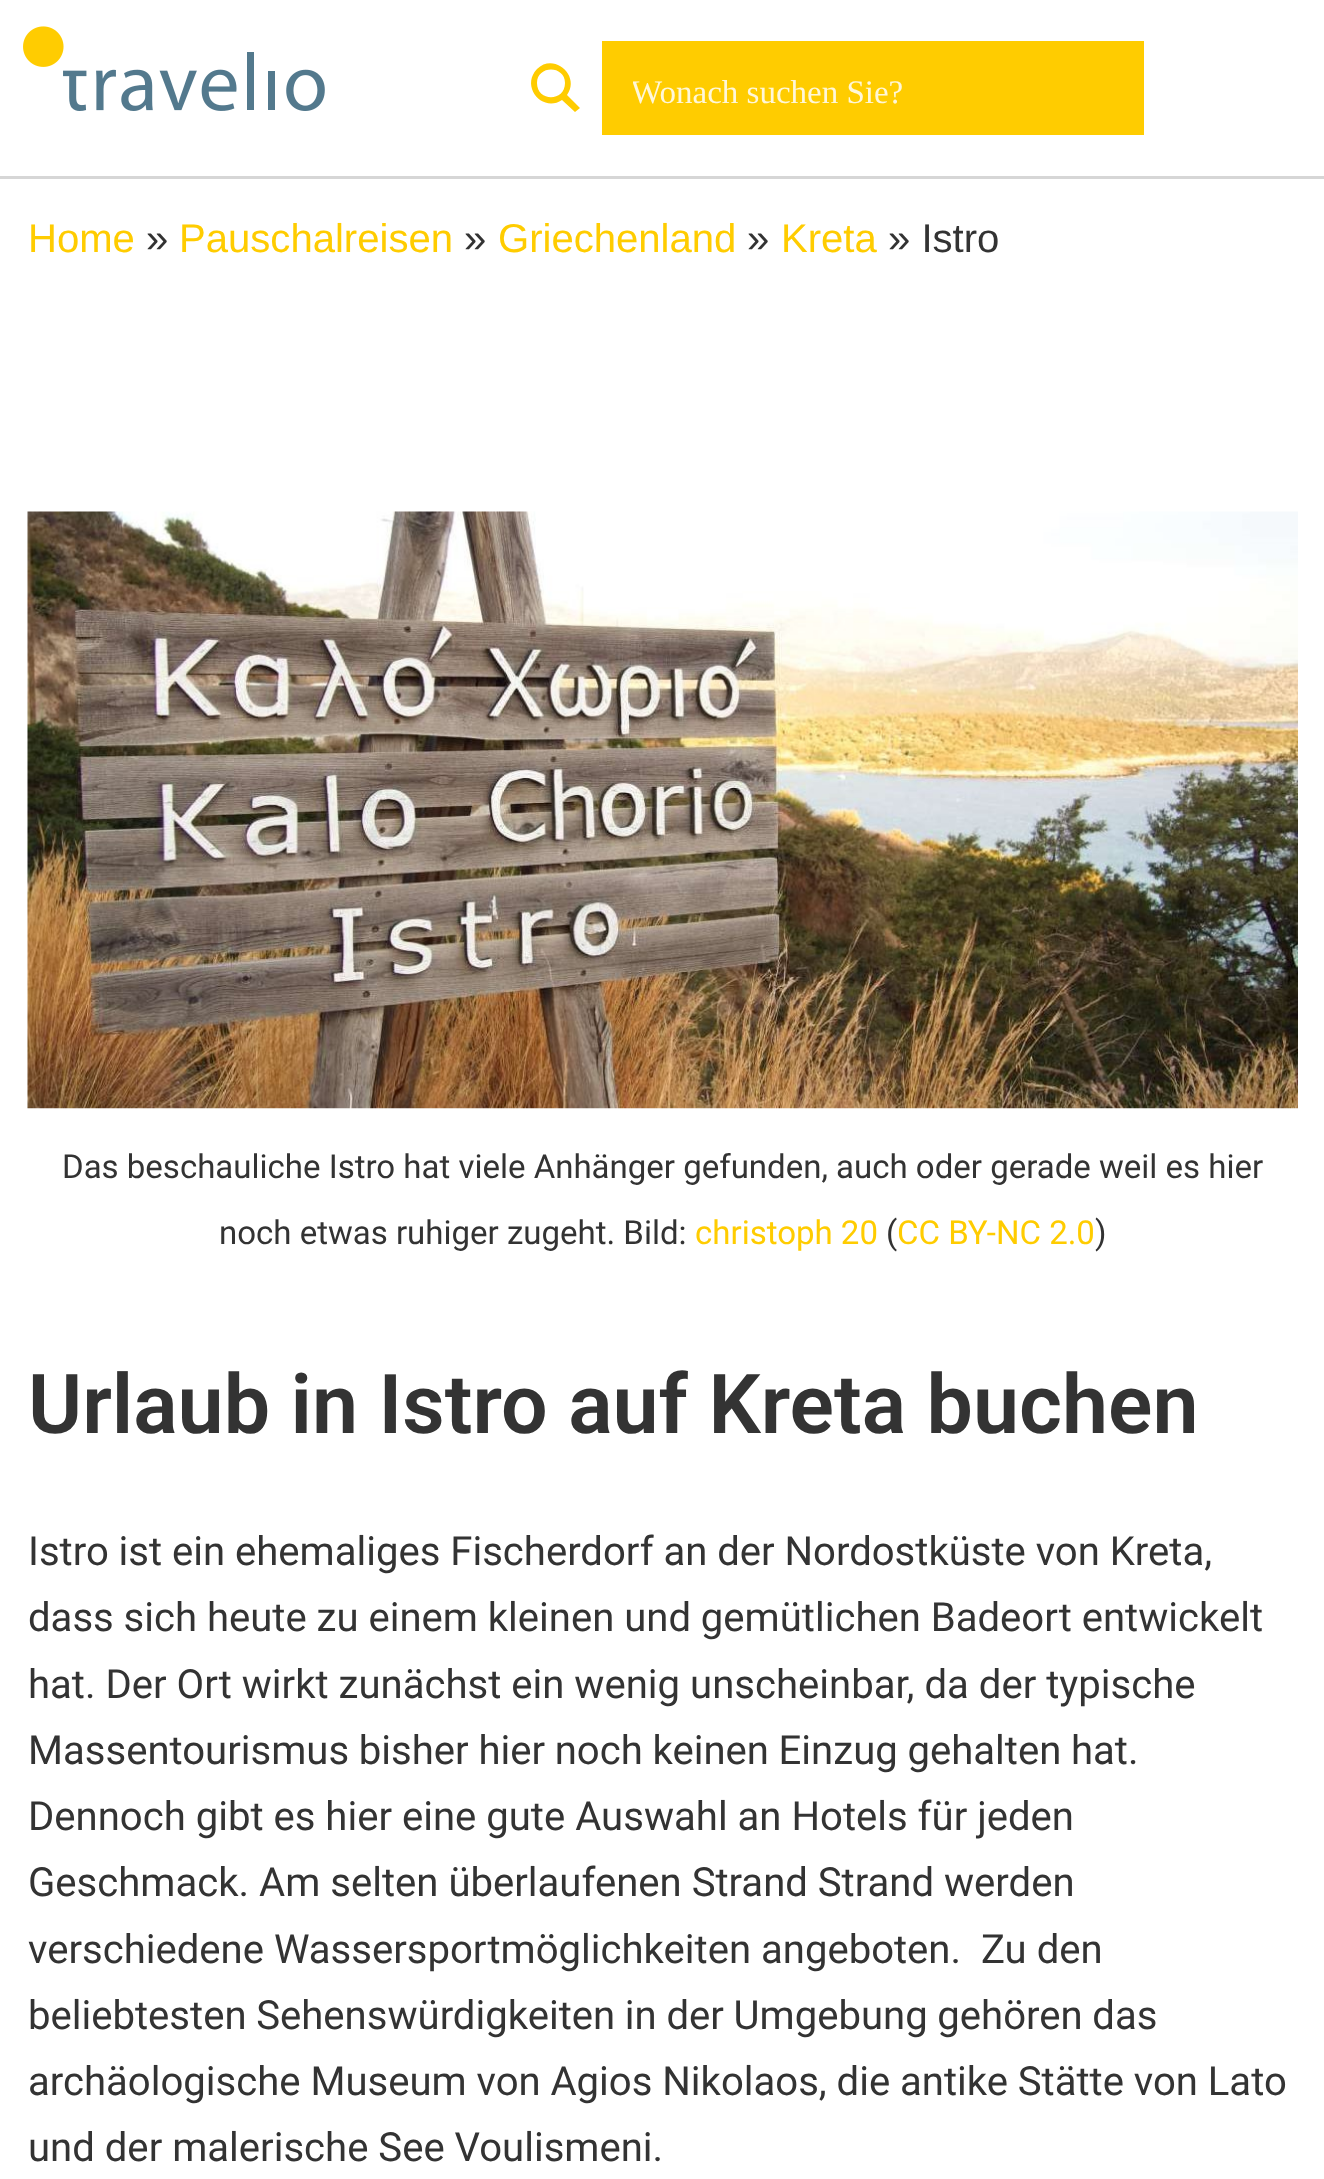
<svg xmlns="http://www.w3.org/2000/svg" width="1324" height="2179">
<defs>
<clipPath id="clip1"><rect x="633" y="66" width="486" height="47"/></clipPath>
</defs>
<rect width="100%" height="100%" fill="#fff"/>
<rect y="176" width="1324" height="3" fill="#d6d6d6"/>
<image x="23" y="26" width="302" height="85" href="media/1.png"/>
<rect x="602" y="41" width="542" height="94" fill="#fc0"/>
<path d="M580 108l-13-13c14-19-13-43-30-26c-17 18 6 44 25 31l13 12zm-43-25c0-18 28-18 28 0c0 19-28 19-28 0z" fill="#fc0"/>
<g clip-path="url(#clip1)">
<text x="631" y="103" style="font-family:Liberation Serif;font-size:33px;fill:#fff7d9">Wonach suchen Sie?</text>
</g>
<text x="28" y="252" style="font-family:Liberation Sans;font-size:40.1px;fill:#fc0">Home</text>
<text x="146" y="252" style="font-family:Liberation Sans;font-size:40.1px;fill:#333">»</text>
<text x="179" y="252" style="font-family:Liberation Sans;font-size:40.1px;fill:#fc0">Pauschalreisen</text>
<text x="464" y="252" style="font-family:Liberation Sans;font-size:40.1px;fill:#333">»</text>
<text x="498" y="252" style="font-family:Liberation Sans;font-size:40.1px;fill:#fc0">Griechenland</text>
<text x="747" y="252" style="font-family:Liberation Sans;font-size:40.1px;fill:#333">»</text>
<text x="781" y="252" style="font-family:Liberation Sans;font-size:40.1px;fill:#fc0">Kreta</text>
<text x="888" y="252" style="font-family:Liberation Sans;font-size:40.1px;fill:#333">» Istro</text>
<image x="27" y="511" width="1271" height="598" href="media/2.png"/>
<text x="62" y="1178" style="font-family:Roboto;font-size:33px;fill:#333">Das beschauliche Istro hat viele Anhänger gefunden, auch oder gerade weil es hier</text>
<text x="219" y="1244" style="font-family:Roboto;font-size:33px;fill:#333">noch etwas ruhiger zugeht. Bild:</text>
<text x="695" y="1244" style="font-family:Roboto;font-size:33px;fill:#fc0">christoph 20</text>
<text x="886" y="1244" style="font-family:Roboto;font-size:33px;fill:#333">(</text>
<text x="897" y="1244" style="font-family:Roboto;font-size:33px;fill:#fc0">CC BY-NC 2.0</text>
<text x="1095" y="1244" style="font-family:Roboto;font-size:33px;fill:#333">)</text>
<text x="28" y="1433" style="font-family:Roboto;font-size:82.5px;font-weight:600;fill:#333">Urlaub in Istro auf Kreta buchen</text>
<text x="28" y="1565" word-spacing="-0.1" style="font-family:Roboto;font-size:40.1px;fill:#333">Istro ist ein ehemaliges Fischerdorf an der Nordostküste von Kreta,</text>
<text x="28" y="1631" word-spacing="-0.1" style="font-family:Roboto;font-size:40.1px;fill:#333">dass sich heute zu einem kleinen und gemütlichen Badeort entwickelt</text>
<text x="28" y="1698" style="font-family:Roboto;font-size:40.1px;fill:#333">hat. Der Ort wirkt zunächst ein wenig unscheinbar, da der typische</text>
<text x="28" y="1764" word-spacing="-0.25" style="font-family:Roboto;font-size:40.1px;fill:#333">Massentourismus bisher hier noch keinen Einzug gehalten hat.</text>
<text x="28" y="1830" style="font-family:Roboto;font-size:40.1px;fill:#333">Dennoch gibt es hier eine gute Auswahl an Hotels für jeden</text>
<text x="28" y="1896" style="font-family:Roboto;font-size:40.1px;fill:#333">Geschmack. Am selten überlaufenen Strand Strand werden</text>
<text x="28" y="1963" style="font-family:Roboto;font-size:40.1px;fill:#333" xml:space="preserve">verschiedene Wassersportmöglichkeiten angeboten.  Zu den</text>
<text x="28" y="2029" word-spacing="-0.25" style="font-family:Roboto;font-size:40.1px;fill:#333">beliebtesten Sehenswürdigkeiten in der Umgebung gehören das</text>
<text x="28" y="2095" word-spacing="-0.1" style="font-family:Roboto;font-size:40.1px;fill:#333">archäologische Museum von Agios Nikolaos, die antike Stätte von Lato</text>
<text x="28" y="2161" style="font-family:Roboto;font-size:40.1px;fill:#333">und der malerische See Voulismeni.</text>
</svg>
